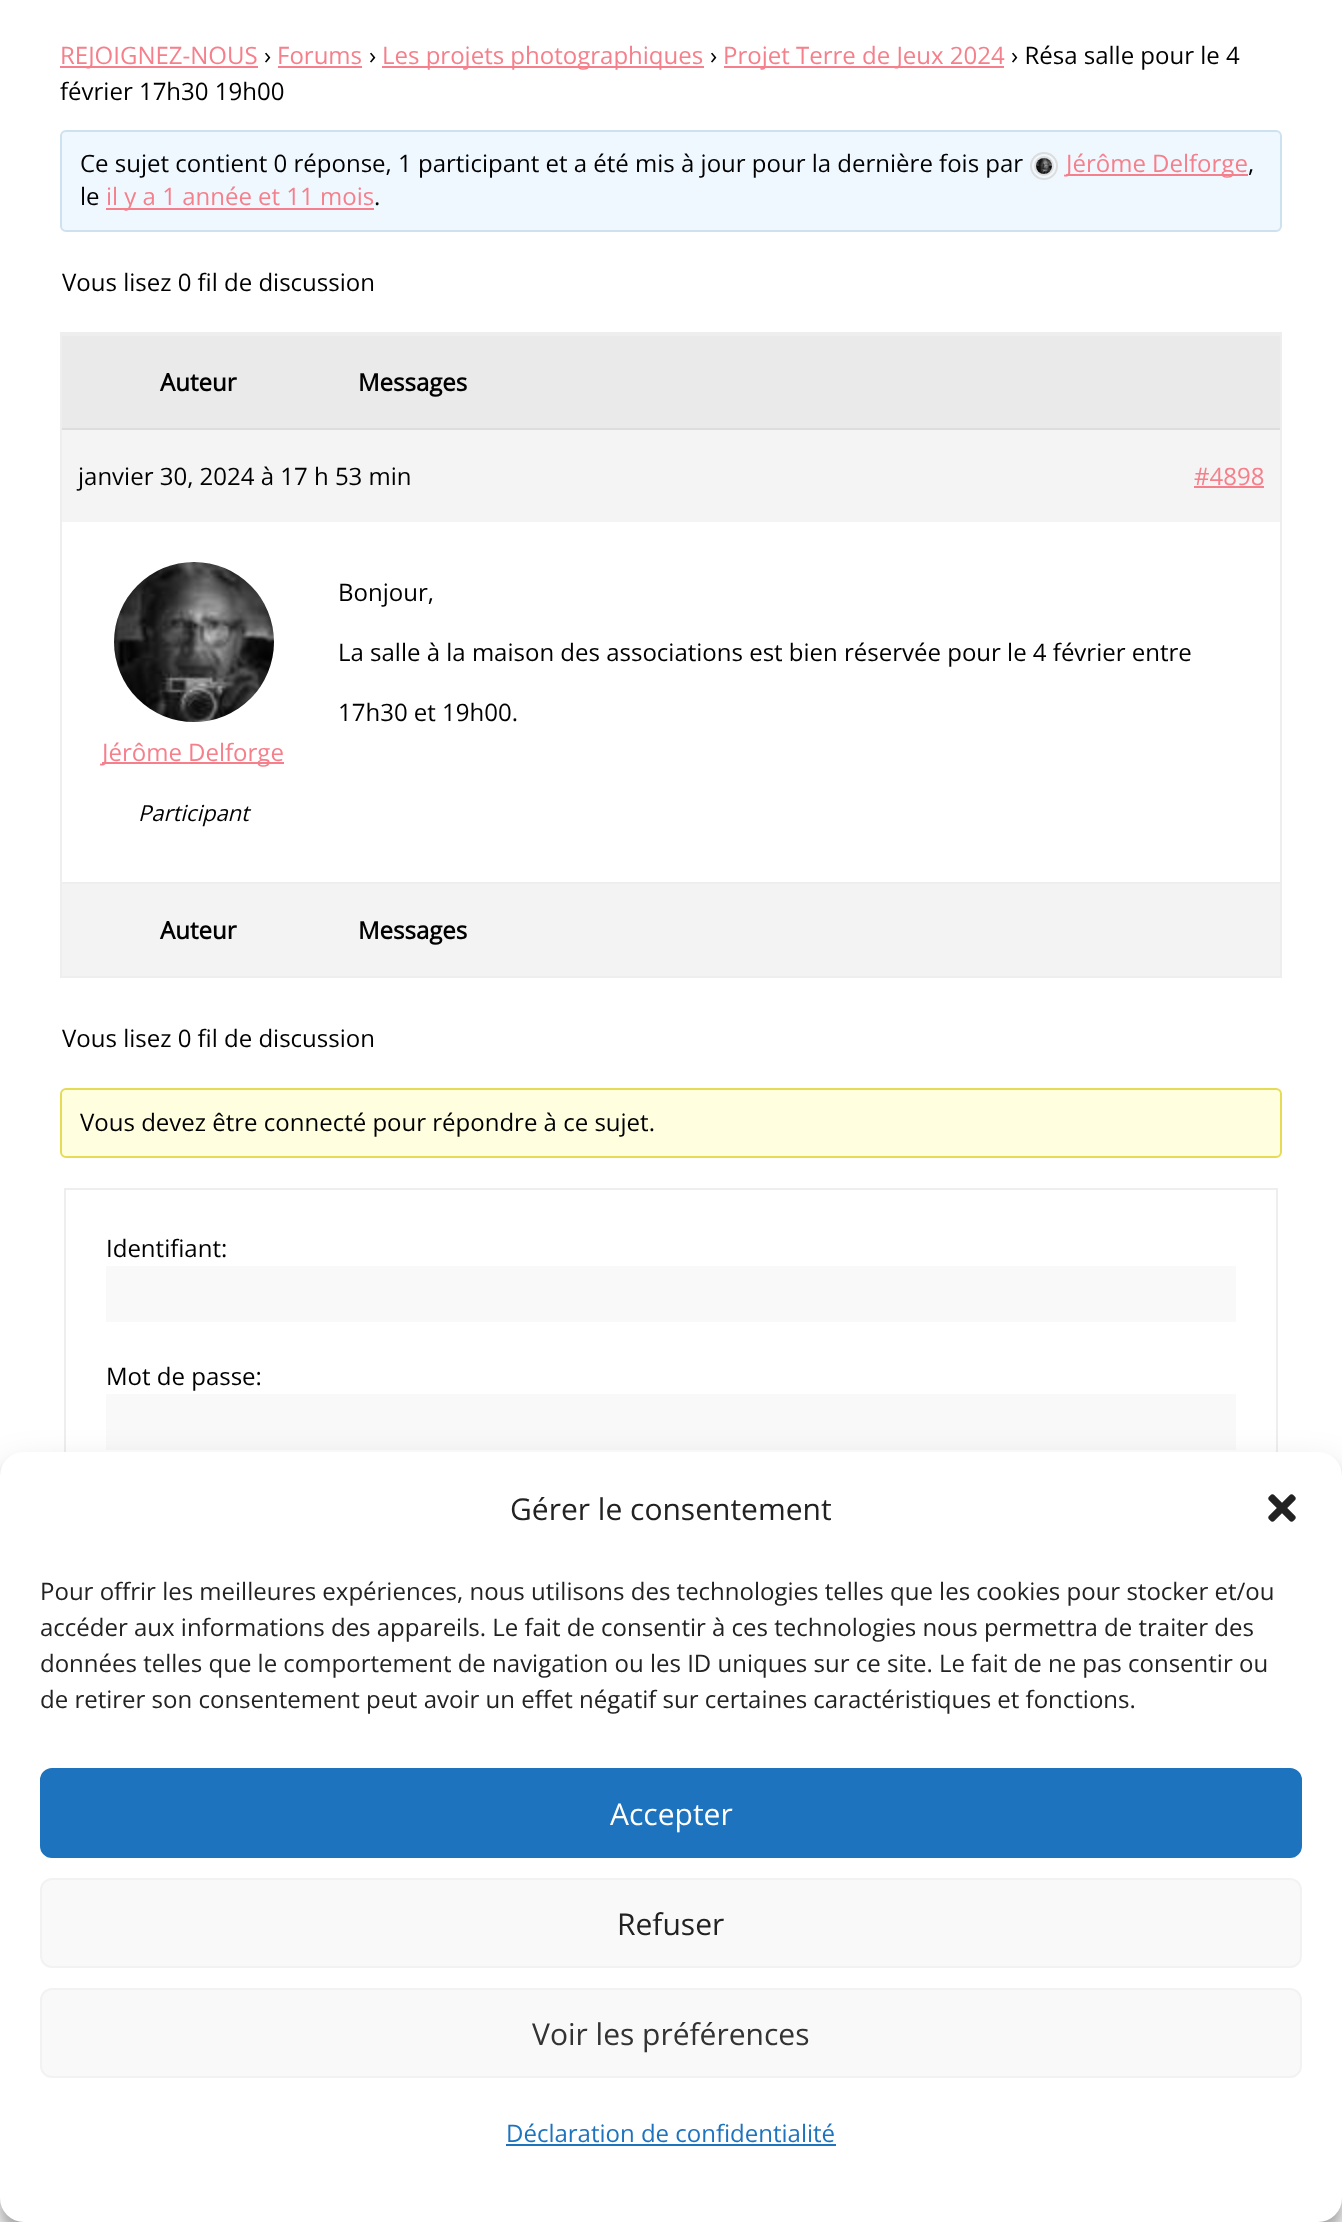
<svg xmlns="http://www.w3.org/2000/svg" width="1342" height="2222">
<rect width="100%" height="100%" fill="#fff"/>
<rect x="60" y="66" width="198" height="2" fill="#f5808c"/>
<text x="60" y="64" style="font-family:Open Sans;font-size:24px;fill:#f5808c">REJOIGNEZ-NOUS</text>
<text x="264" y="64" style="font-family:Open Sans;font-size:24px;fill:#000">›</text>
<text x="277" y="64" style="font-family:Open Sans;font-size:24px;fill:#f5808c">Forums</text>
<rect x="278" y="66" width="84" height="2" fill="#f5808c"/>
<text x="369" y="64" style="font-family:Open Sans;font-size:24px;fill:#000">›</text>
<rect x="382" y="66" width="322" height="2" fill="#f5808c"/>
<text x="382" y="64" style="font-family:Open Sans;font-size:24px;fill:#f5808c">Les projets photographiques</text>
<text x="710" y="64" style="font-family:Open Sans;font-size:24px;fill:#000">›</text>
<rect x="724" y="66" width="280" height="2" fill="#f5808c"/>
<text x="723" y="64" style="font-family:Open Sans;font-size:24px;fill:#f5808c">Projet Terre de Jeux 2024</text>
<text x="1011" y="64" style="font-family:Open Sans;font-size:24px;fill:#000">› Résa salle pour le 4</text>
<text x="60" y="100" style="font-family:Open Sans;font-size:24px;fill:#000">février 17h30 19h00</text>
<rect x="61" y="131" width="1220" height="100" rx="5" fill="#f0f8ff" stroke="#cee1ef" stroke-width="2"/>
<text x="80" y="172" style="font-family:Open Sans;font-size:24px;fill:#000">Ce sujet contient 0 réponse, 1 participant et a été mis à jour pour la dernière fois par</text>
<circle cx="1044" cy="166" r="13" fill="none" stroke="#ddd" stroke-width="2"/>
<circle cx="1044" cy="166" r="9" fill="none" stroke="#ddd" stroke-width="2"/>
<image x="1036" y="158" width="16" height="16" href="media/1.png"/>
<rect x="1066" y="174" width="182" height="2" fill="#f5808c"/>
<text x="1066" y="172" style="font-family:Open Sans;font-size:24px;fill:#f5808c">Jérôme Delforge</text>
<text x="1248" y="172" style="font-family:Open Sans;font-size:24px;fill:#000">,</text>
<text x="80" y="205" style="font-family:Open Sans;font-size:24px;fill:#000">le</text>
<rect x="106" y="208" width="268" height="2" fill="#f5808c"/>
<text x="106" y="205" style="font-family:Open Sans;font-size:24px;fill:#f5808c">il y a 1 année et 11 mois</text>
<text x="374" y="205" style="font-family:Open Sans;font-size:24px;fill:#000">.</text>
<text x="62" y="291" style="font-family:Open Sans;font-size:24px;fill:#000">Vous lisez 0 fil de discussion</text>
<rect x="61" y="333" width="1220" height="644" fill="none" stroke="#eee" stroke-width="2"/>
<rect x="62" y="336" width="1218" height="92" fill="#eaeaea"/>
<rect x="62" y="334" width="1218" height="2" fill="#eee"/>
<text x="160" y="391" style="font-family:Open Sans;font-size:24px;font-weight:bold;fill:#000">Auteur</text>
<text x="358" y="391" style="font-family:Open Sans;font-size:24px;font-weight:bold;fill:#000">Messages</text>
<rect x="62" y="430" width="1218" height="92" fill="#f4f4f4"/>
<rect x="62" y="428" width="1218" height="2" fill="#ddd"/>
<text x="78" y="485" style="font-family:Open Sans;font-size:24px;fill:#000">janvier 30, 2024 à 17 h 53 min</text>
<text x="1194" y="485" style="font-family:Open Sans;font-size:24px;fill:#f5808c">#4898</text>
<rect x="1194" y="486" width="70" height="2" fill="#f5808c"/>
<text x="338" y="601" style="font-family:Open Sans;font-size:24px;fill:#000">Bonjour,</text>
<text x="338" y="661" style="font-family:Open Sans;font-size:24px;fill:#000">La salle à la maison des associations est bien réservée pour le 4 février entre</text>
<text x="338" y="721" style="font-family:Open Sans;font-size:24px;fill:#000">17h30 et 19h00.</text>
<image x="114" y="562" width="160" height="160" href="media/2.png"/>
<rect x="102" y="762" width="182" height="2" fill="#f5808c"/>
<text x="102" y="761" style="font-family:Open Sans;font-size:24px;fill:#f5808c">Jérôme Delforge</text>
<text x="138" y="821" style="font-family:Open Sans;font-size:22px;font-style:italic;fill:#000">Participant</text>
<rect x="62" y="884" width="1218" height="92" fill="#f3f3f3"/>
<rect x="62" y="882" width="1218" height="2" fill="#eee"/>
<text x="160" y="939" style="font-family:Open Sans;font-size:24px;font-weight:bold;fill:#000">Auteur</text>
<text x="358" y="939" style="font-family:Open Sans;font-size:24px;font-weight:bold;fill:#000">Messages</text>
<text x="62" y="1047" style="font-family:Open Sans;font-size:24px;fill:#000">Vous lisez 0 fil de discussion</text>
<rect x="61" y="1089" width="1220" height="68" rx="5" fill="#ffffe0" stroke="#e6db55" stroke-width="2"/>
<text x="80" y="1131" style="font-family:Open Sans;font-size:24px;fill:#000">Vous devez être connecté pour répondre à ce sujet.</text>
<rect x="65" y="1189" width="1212" height="442" fill="none" stroke="#eee" stroke-width="2"/>
<text x="106" y="1257" style="font-family:Open Sans;font-size:24px;fill:#000">Identifiant:</text>
<rect x="106" y="1266" width="1130" height="56" fill="#f9f9f9"/>
<text x="106" y="1385" style="font-family:Open Sans;font-size:24px;fill:#000">Mot de passe:</text>
<rect x="106" y="1394" width="1130" height="56" fill="#f9f9f9"/>
<rect y="1464" width="1342" height="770" rx="24" fill="#0000003b" filter="blur(6px)"/>
<rect y="1472" width="1342" height="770" rx="24" fill="#00000030" filter="blur(20px)"/>
<rect y="1452" width="1342" height="770" rx="24" fill="#fff"/>
<text x="510" y="1520" style="font-family:Open Sans;font-size:30px;fill:#222">Gérer le consentement</text>
<image x="1268" y="1494" width="28" height="28" href="media/3.png"/>
<text x="40" y="1600" style="font-family:Open Sans;font-size:24px;fill:#222">Pour offrir les meilleures expériences, nous utilisons des technologies telles que les cookies pour stocker et/ou</text>
<text x="40" y="1636" style="font-family:Open Sans;font-size:24px;fill:#222">accéder aux informations des appareils. Le fait de consentir à ces technologies nous permettra de traiter des</text>
<text x="40" y="1672" style="font-family:Open Sans;font-size:24px;fill:#222">données telles que le comportement de navigation ou les ID uniques sur ce site. Le fait de ne pas consentir ou</text>
<text x="40" y="1708" style="font-family:Open Sans;font-size:24px;fill:#222">de retirer son consentement peut avoir un effet négatif sur certaines caractéristiques et fonctions.</text>
<rect x="41" y="1769" width="1260" height="88" rx="11" fill="#1e73be" stroke="#1e73be" stroke-width="2"/>
<text x="610" y="1825" style="font-family:Open Sans;font-size:30px;fill:#fff">Accepter</text>
<rect x="41" y="1879" width="1260" height="88" rx="11" fill="#f9f9f9" stroke="#f2f2f2" stroke-width="2"/>
<text x="617" y="1935" style="font-family:Open Sans;font-size:30px;fill:#222">Refuser</text>
<rect x="41" y="1989" width="1260" height="88" rx="11" fill="#f9f9f9" stroke="#f2f2f2" stroke-width="2"/>
<text x="532" y="2045" style="font-family:Open Sans;font-size:30px;fill:#333">Voir les préférences</text>
<text x="506" y="2142" style="font-family:Open Sans;font-size:24px;fill:#1e73be">Déclaration de confidentialité</text>
<rect x="506" y="2144" width="330" height="2" fill="#1e73be"/>
</svg>
